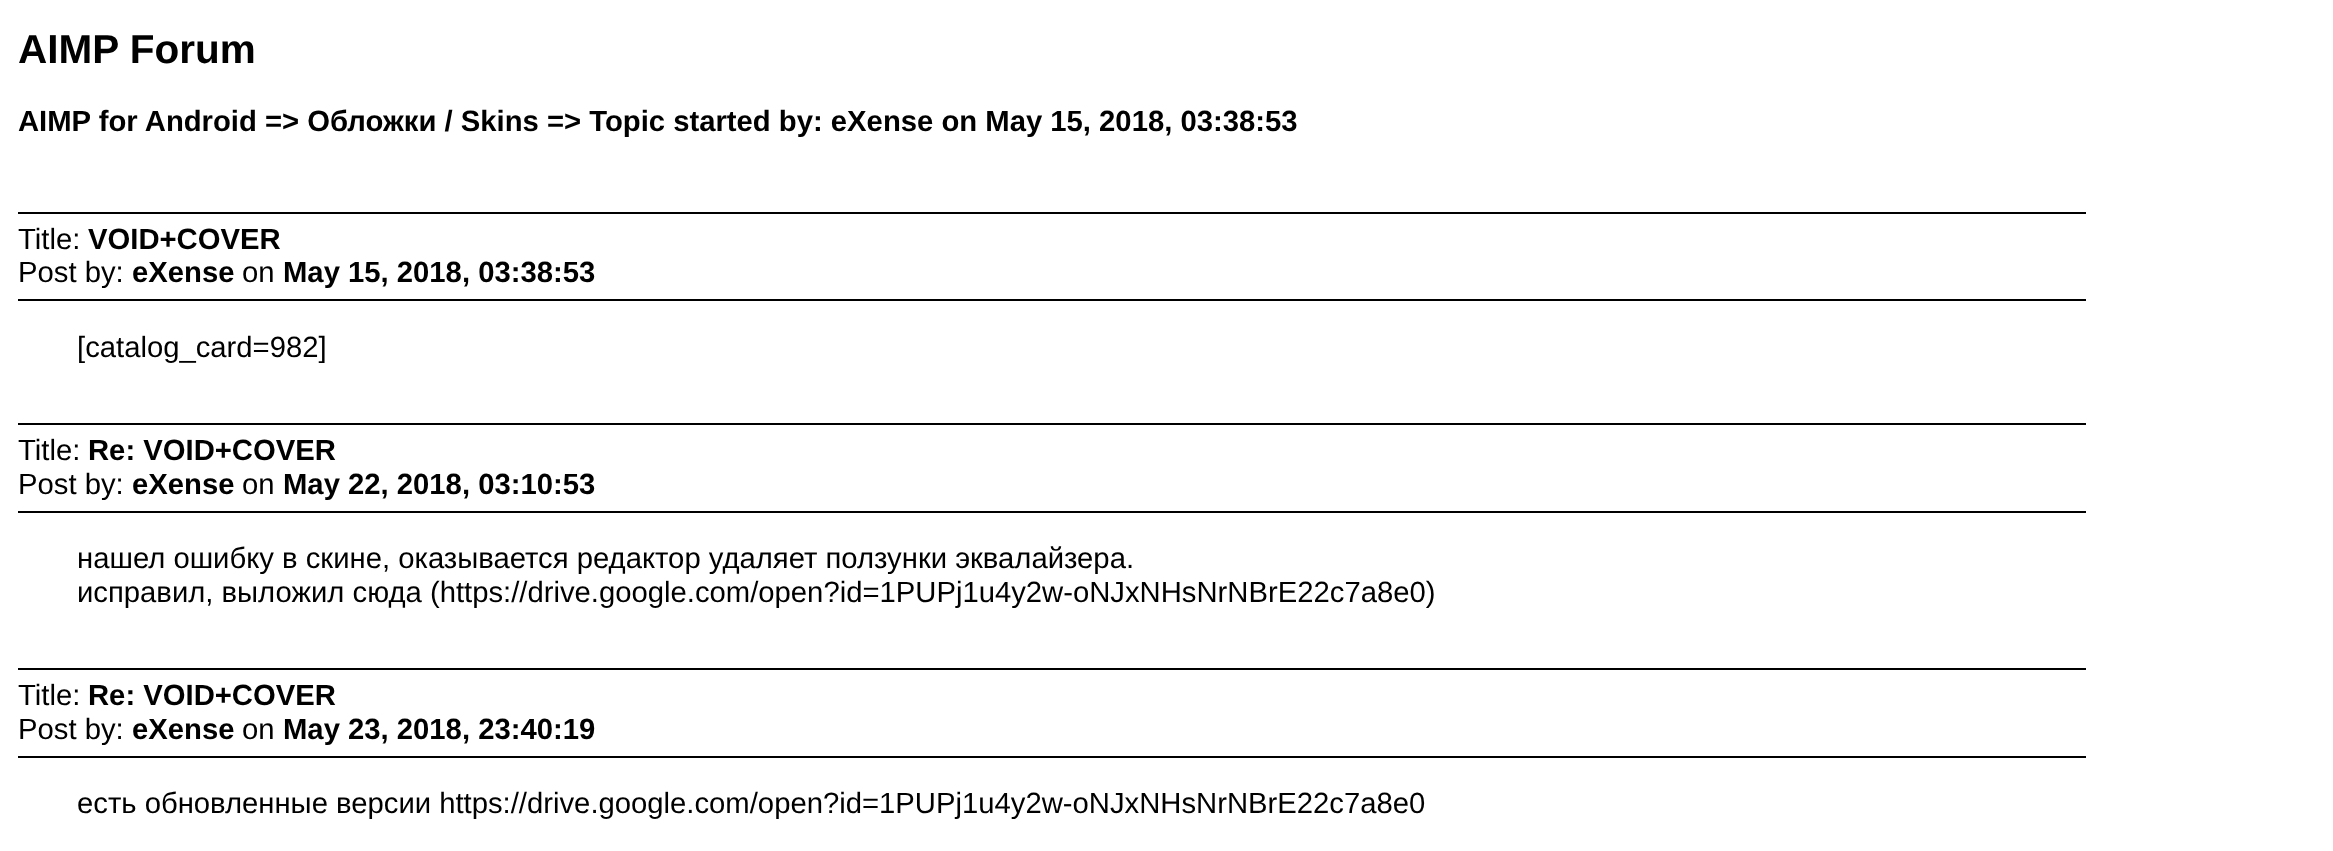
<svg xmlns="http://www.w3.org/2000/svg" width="2333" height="851">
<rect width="100%" height="100%" fill="#fff"/>
<text x="18" y="63" style="font-family:Liberation Sans;font-size:40.5px;font-weight:bold;fill:#000">AIMP Forum</text>
<text x="18" y="131" style="font-family:Liberation Sans;font-size:29.25px;font-weight:bold;fill:#000">AIMP for Android =&gt; Обложки / Skins =&gt; Topic started by: eXense on May 15, 2018, 03:38:53</text>
<rect x="18" y="212" width="2068" height="2" fill="#000"/>
<rect x="18" y="299" width="2068" height="2" fill="#000"/>
<text x="18" y="249" style="font-family:Liberation Sans;font-size:29.25px;fill:#000">Title:</text>
<text x="88" y="249" style="font-family:Liberation Sans;font-size:29.25px;font-weight:bold;fill:#000">VOID+COVER</text>
<text x="18" y="282" style="font-family:Liberation Sans;font-size:29.25px;fill:#000">Post by:</text>
<text x="132" y="282" style="font-family:Liberation Sans;font-size:29.25px;font-weight:bold;fill:#000">eXense</text>
<text x="242" y="282" style="font-family:Liberation Sans;font-size:29.25px;fill:#000">on</text>
<text x="283" y="282" style="font-family:Liberation Sans;font-size:29.25px;font-weight:bold;fill:#000">May 15, 2018, 03:38:53</text>
<text x="77" y="357" style="font-family:Liberation Sans;font-size:29.25px;fill:#000">[catalog_card=982]</text>
<rect x="18" y="423" width="2068" height="2" fill="#000"/>
<rect x="18" y="511" width="2068" height="2" fill="#000"/>
<text x="18" y="460" style="font-family:Liberation Sans;font-size:29.25px;fill:#000">Title:</text>
<text x="88" y="460" style="font-family:Liberation Sans;font-size:29.25px;font-weight:bold;fill:#000">Re: VOID+COVER</text>
<text x="18" y="494" style="font-family:Liberation Sans;font-size:29.25px;fill:#000">Post by:</text>
<text x="132" y="494" style="font-family:Liberation Sans;font-size:29.25px;font-weight:bold;fill:#000">eXense</text>
<text x="242" y="494" style="font-family:Liberation Sans;font-size:29.25px;fill:#000">on</text>
<text x="283" y="494" style="font-family:Liberation Sans;font-size:29.25px;font-weight:bold;fill:#000">May 22, 2018, 03:10:53</text>
<text x="77" y="568" style="font-family:Liberation Sans;font-size:29.25px;fill:#000">нашел ошибку в скине, оказывается редактор удаляет ползунки эквалайзера.</text>
<text x="77" y="602" style="font-family:Liberation Sans;font-size:29.25px;fill:#000">исправил, выложил сюда (https://drive.google.com/open?id=1PUPj1u4y2w-oNJxNHsNrNBrE22c7a8e0)</text>
<rect x="18" y="668" width="2068" height="2" fill="#000"/>
<rect x="18" y="756" width="2068" height="2" fill="#000"/>
<text x="18" y="705" style="font-family:Liberation Sans;font-size:29.25px;fill:#000">Title:</text>
<text x="88" y="705" style="font-family:Liberation Sans;font-size:29.25px;font-weight:bold;fill:#000">Re: VOID+COVER</text>
<text x="18" y="739" style="font-family:Liberation Sans;font-size:29.25px;fill:#000">Post by:</text>
<text x="132" y="739" style="font-family:Liberation Sans;font-size:29.25px;font-weight:bold;fill:#000">eXense</text>
<text x="242" y="739" style="font-family:Liberation Sans;font-size:29.25px;fill:#000">on</text>
<text x="283" y="739" style="font-family:Liberation Sans;font-size:29.25px;font-weight:bold;fill:#000">May 23, 2018, 23:40:19</text>
<text x="77" y="813" style="font-family:Liberation Sans;font-size:29.25px;fill:#000">есть обновленные версии https://drive.google.com/open?id=1PUPj1u4y2w-oNJxNHsNrNBrE22c7a8e0</text>
</svg>
